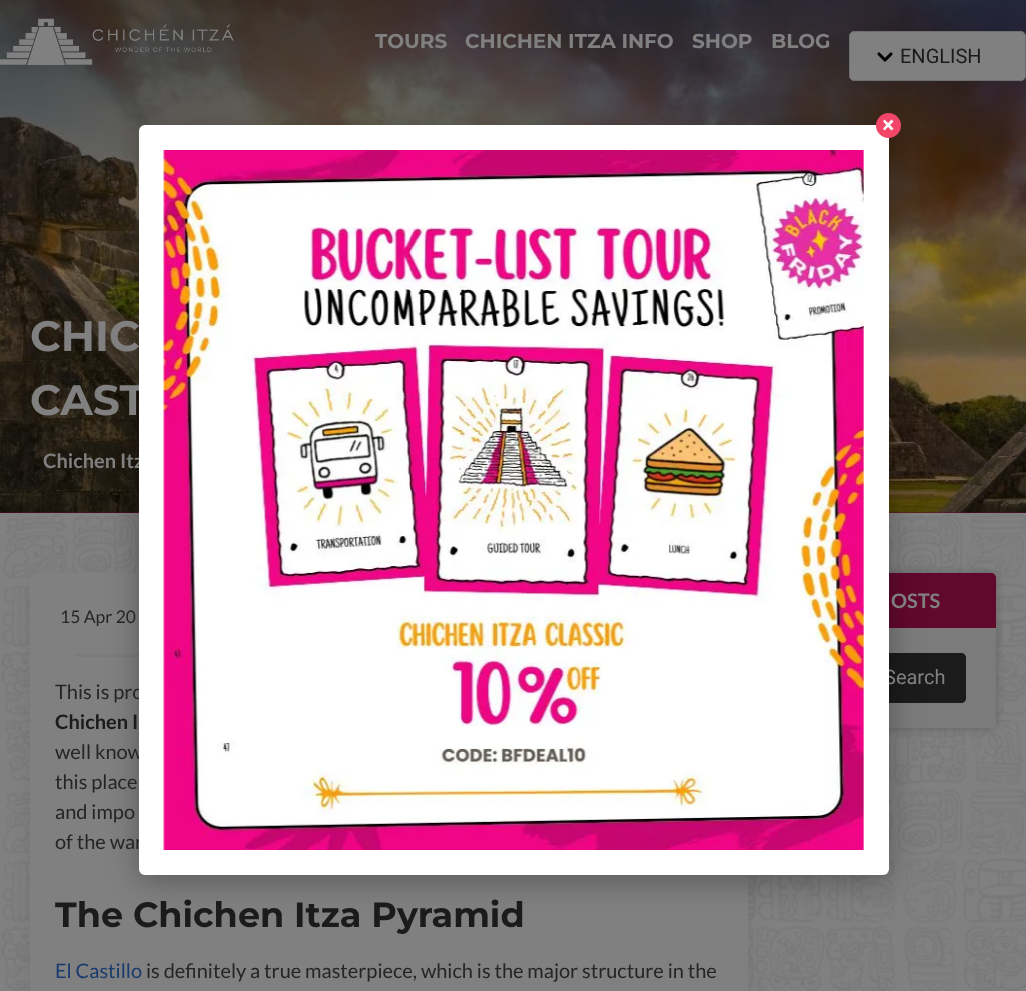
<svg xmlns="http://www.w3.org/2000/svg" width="1026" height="991">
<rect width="100%" height="100%" fill="#808080"/>
<rect y="512" width="1026" height="1" fill="#61082d"/>
<image x="0" y="0" width="1026" height="513" href="media/3.png"/>
<image x="0" y="18" width="234" height="47" href="media/1.png"/>
<text x="375" y="48" style="font-family:Montserrat;font-size:20px;font-weight:bold;fill:#808080">TOURS</text>
<text x="465" y="48" style="font-family:Montserrat;font-size:20px;font-weight:bold;fill:#808080">CHICHEN ITZA INFO</text>
<text x="692" y="48" style="font-family:Montserrat;font-size:20px;font-weight:bold;fill:#808080">SHOP</text>
<text x="771" y="48" style="font-family:Montserrat;font-size:20px;font-weight:bold;fill:#808080">BLOG</text>
<rect x="849.5" y="31.5" width="176" height="49" rx="4.5" fill="#808080" stroke="#6e6e6e"/>
<path d="M879 54l6 6m0 0l6-6" fill="none" stroke="#000" stroke-width="3.1" stroke-linecap="round" stroke-linejoin="round"/>
<text x="900" y="63" style="font-family:Roboto;font-size:20px;fill:#1b1b1b">ENGLISH</text>
<image x="1" y="514" width="1025" height="477" href="media/4.png"/>
<rect x="33" y="585" width="712" height="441" rx="5" fill="#0505051a" filter="blur(10px)"/>
<rect x="30" y="573" width="718" height="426" rx="8" fill="#808080"/>
<rect x="75" y="654" width="64" height="3" fill="#7b7b7b"/>
<rect x="778" y="573" width="218" height="155" rx="5" fill="#606060" filter="blur(4px)"/>
<rect x="778" y="573" width="218" height="155" rx="5" fill="#7b7b7b"/>
<path d="M783 573h208c3 0 5 2 5 5v50h-218v-50c0-3 2-5 5-5z" fill="#61082d"/>
<path d="M863 653h98c3 0 5 2 5 5v40c0 3-2 5-5 5h-98z" fill="#1b1b1b"/>
<rect x="139" y="131" width="750" height="750" rx="6" fill="#0000004d" filter="blur(15.5px)"/>
<text x="30" y="351" style="font-family:Montserrat;font-size:42.5px;font-weight:bold;fill:#808080">CHIC</text>
<text x="30" y="415" style="font-family:Montserrat;font-size:42.5px;font-weight:bold;fill:#808080">CAST</text>
<text x="43" y="468" style="font-family:Lato;font-size:20px;font-weight:bold;fill:#808080">Chichen Itz</text>
<text x="55" y="699" style="font-family:Lato;font-size:20px;fill:#252525">This is pro</text>
<text x="55" y="759" style="font-family:Lato;font-size:20px;fill:#252525">well know</text>
<text x="55" y="849" style="font-family:Lato;font-size:20px;fill:#252525">of the war</text>
<text x="884" y="684" style="font-family:Roboto;font-size:20px;fill:#808080">Search</text>
<rect x="139" y="125" width="750" height="750" rx="6" fill="#fff"/>
<circle cx="888.5" cy="125.5" r="12.5" fill="#f14668"/>
<path d="M884.5 119.5l9 9l-2 2l-8.5-9z" fill="#fff"/>
<path d="M891.5 119.5l2 2l-9 9l-1.5-2z" fill="#fff"/>
<image x="163" y="150" width="701" height="700" href="media/2.png"/>
<text x="60" y="623" style="font-family:Lato;font-size:17.5px;fill:#252525">15 Apr 20</text>
<text x="55" y="729" style="font-family:Lato;font-size:20px;font-weight:bold;fill:#1b1b1b">Chichen I</text>
<text x="55" y="789" style="font-family:Lato;font-size:20px;fill:#252525">this place</text>
<text x="55" y="819" style="font-family:Lato;font-size:20px;fill:#252525">and impo</text>
<text x="55" y="927" style="font-family:Montserrat;font-size:35px;font-weight:bold;fill:#1b1b1b">The Chichen Itza Pyramid</text>
<text x="55" y="978" style="font-family:Lato;font-size:20px;fill:#193a6e">El Castillo</text>
<text x="146" y="978" style="font-family:Lato;font-size:20px;fill:#252525">is definitely a true masterpiece, which is the major structure in the</text>
<text x="891" y="608" style="font-family:Lato;font-size:20px;font-weight:bold;fill:#808080">OSTS</text>
</svg>
